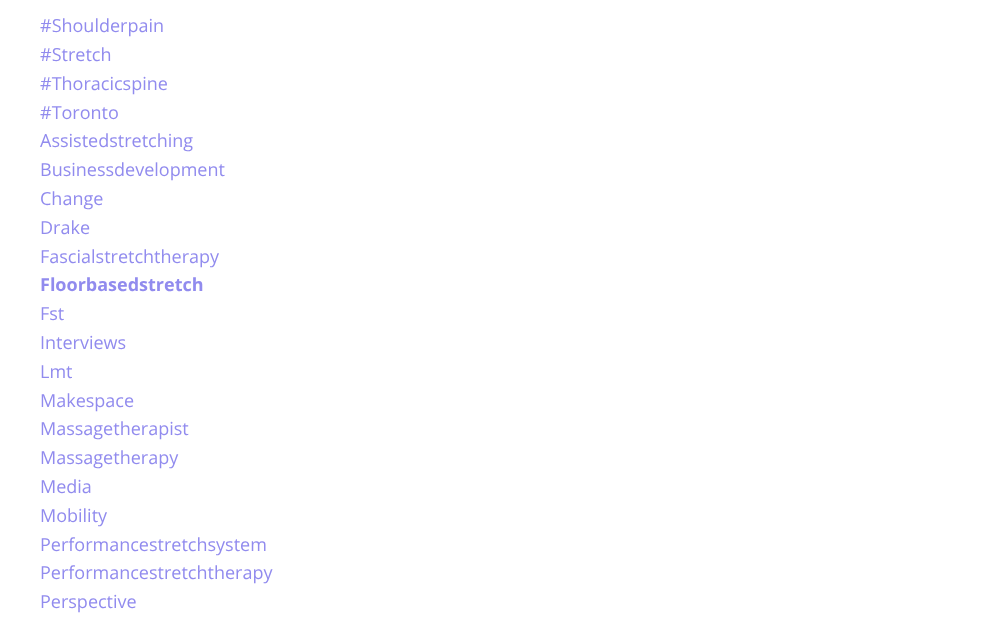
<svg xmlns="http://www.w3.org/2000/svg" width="994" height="629">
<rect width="100%" height="100%" fill="#fff"/>
<text x="40" y="32" style="font-family:Open Sans;font-size:18px;fill:#918bee">#Shoulderpain</text>
<text x="40" y="61" style="font-family:Open Sans;font-size:18px;fill:#918bee">#Stretch</text>
<text x="40" y="90" style="font-family:Open Sans;font-size:18px;fill:#918bee">#Thoracicspine</text>
<text x="40" y="119" style="font-family:Open Sans;font-size:18px;fill:#918bee">#Toronto</text>
<text x="40" y="147" style="font-family:Open Sans;font-size:18px;fill:#918bee">Assistedstretching</text>
<text x="40" y="176" style="font-family:Open Sans;font-size:18px;fill:#918bee">Businessdevelopment</text>
<text x="40" y="205" style="font-family:Open Sans;font-size:18px;fill:#918bee">Change</text>
<text x="40" y="234" style="font-family:Open Sans;font-size:18px;fill:#918bee">Drake</text>
<text x="40" y="263" style="font-family:Open Sans;font-size:18px;fill:#918bee">Fascialstretchtherapy</text>
<text x="40" y="291" style="font-family:Open Sans;font-size:18px;font-weight:bold;fill:#918bee">Floorbasedstretch</text>
<text x="40" y="320" style="font-family:Open Sans;font-size:18px;fill:#918bee">Fst</text>
<text x="40" y="349" style="font-family:Open Sans;font-size:18px;fill:#918bee">Interviews</text>
<text x="40" y="378" style="font-family:Open Sans;font-size:18px;fill:#918bee">Lmt</text>
<text x="40" y="407" style="font-family:Open Sans;font-size:18px;fill:#918bee">Makespace</text>
<text x="40" y="435" style="font-family:Open Sans;font-size:18px;fill:#918bee">Massagetherapist</text>
<text x="40" y="464" style="font-family:Open Sans;font-size:18px;fill:#918bee">Massagetherapy</text>
<text x="40" y="493" style="font-family:Open Sans;font-size:18px;fill:#918bee">Media</text>
<text x="40" y="522" style="font-family:Open Sans;font-size:18px;fill:#918bee">Mobility</text>
<text x="40" y="551" style="font-family:Open Sans;font-size:18px;fill:#918bee">Performancestretchsystem</text>
<text x="40" y="579" style="font-family:Open Sans;font-size:18px;fill:#918bee">Performancestretchtherapy</text>
<text x="40" y="608" style="font-family:Open Sans;font-size:18px;fill:#918bee">Perspective</text>
</svg>
